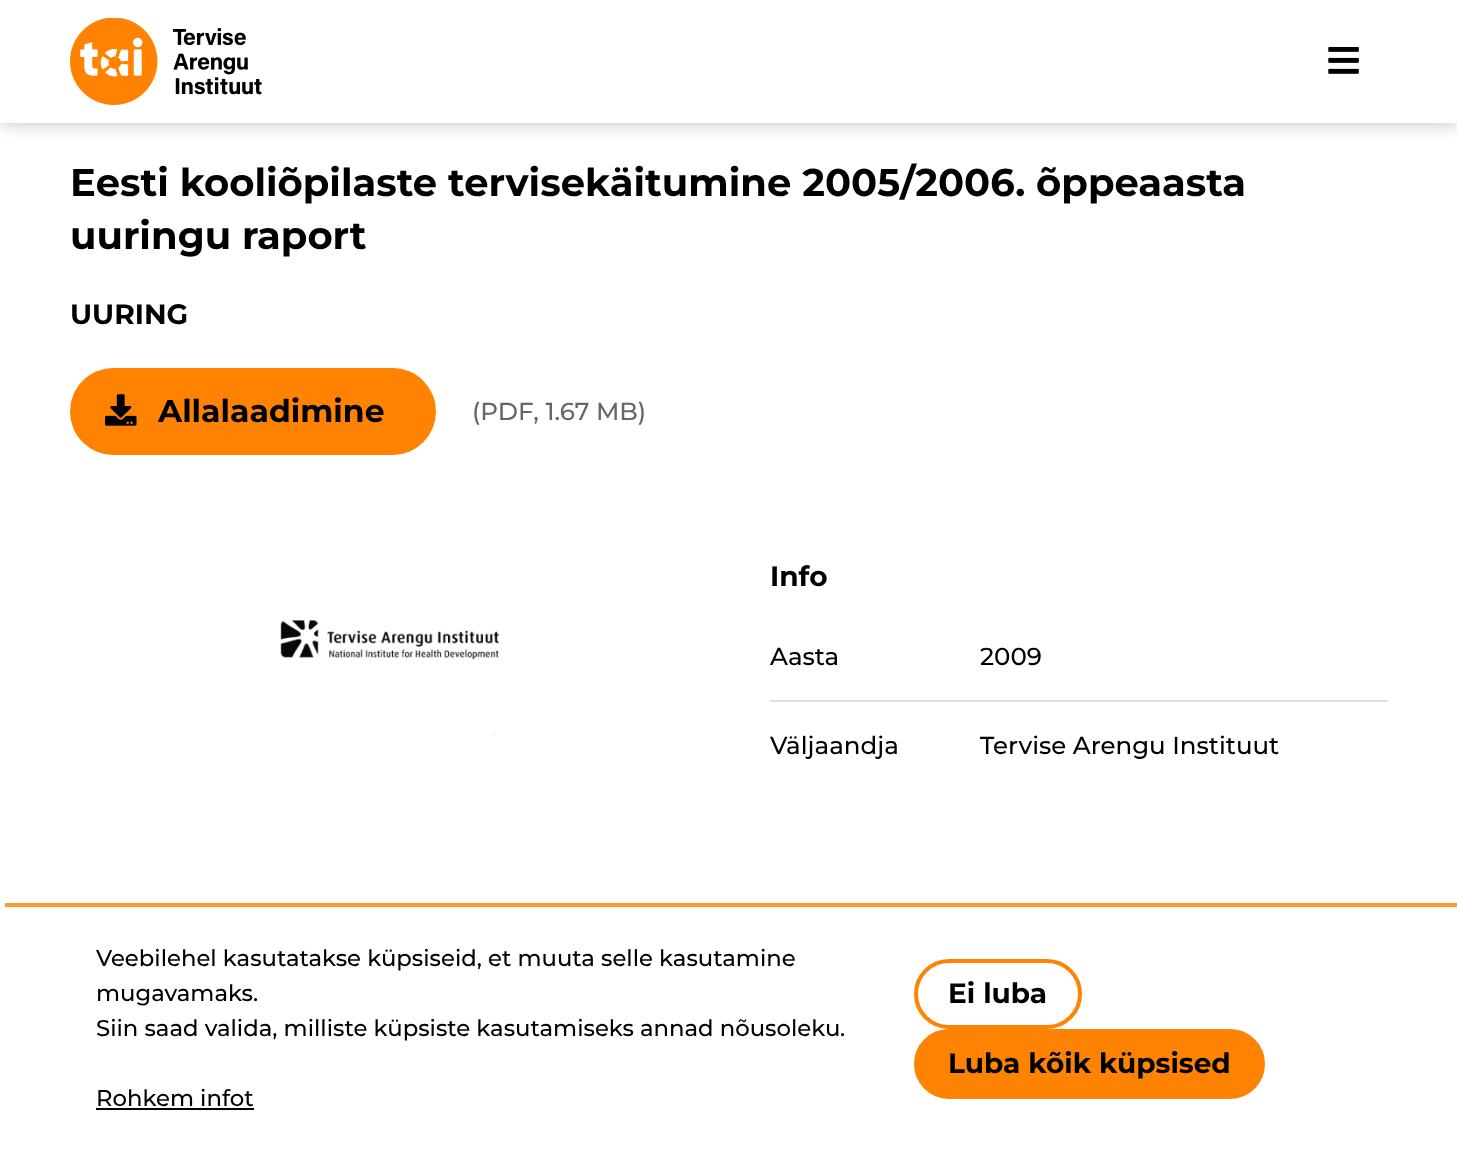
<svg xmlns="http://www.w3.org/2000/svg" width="1457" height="1151">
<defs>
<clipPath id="clip1"><path d="M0 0h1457v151h-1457zm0 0h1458v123h-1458z" clip-rule="evenodd"/></clipPath>
</defs>
<rect width="100%" height="100%" fill="#fff"/>
<g clip-path="url(#clip1)">
<rect width="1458" height="123" fill="#00000040" filter="blur(9px)"/>
</g>
<rect y="122" width="1457" height="1" fill="#fffffff2"/>
<image x="70" y="18" width="192" height="87" href="media/1.png"/>
<image x="1328" y="47" width="31" height="27" href="media/2.png"/>
<text x="70" y="196" style="font-family:Montserrat;font-size:38.5px;font-weight:bold;fill:#000">Eesti kooliõpilaste tervisekäitumine 2005/2006. õppeaasta</text>
<text x="70" y="249" style="font-family:Montserrat;font-size:38.5px;font-weight:bold;fill:#000">uuringu raport</text>
<text x="70" y="324" style="font-family:Montserrat;font-size:28px;font-weight:bold;fill:#000">UURING</text>
<rect x="70" y="368" width="366" height="87" rx="43.5" fill="#ff8200"/>
<image x="105" y="394" width="32" height="32" href="media/3.png"/>
<text x="158" y="422" style="font-family:Montserrat;font-size:31.5px;font-weight:bold;fill:#000">Allalaadimine</text>
<text x="472" y="420" style="font-family:Montserrat;font-size:24.5px;font-weight:500;fill:#666">(PDF, 1.67 MB)</text>
<image x="280" y="620" width="219" height="115" href="media/4.png"/>
<text x="770" y="586" style="font-family:Montserrat;font-size:28px;font-weight:bold;fill:#000">Info</text>
<rect x="770" y="700" width="618" height="2" fill="#dfdfdf"/>
<text x="770" y="665" style="font-family:Montserrat;font-size:24.5px;font-weight:500;fill:#000">Aasta</text>
<text x="980" y="665" style="font-family:Montserrat;font-size:24.5px;font-weight:500;fill:#000">2009</text>
<text x="770" y="754" style="font-family:Montserrat;font-size:24.5px;font-weight:500;fill:#000">Väljaandja</text>
<text x="980" y="754" style="font-family:Montserrat;font-size:24.5px;font-weight:500;fill:#000">Tervise Arengu Instituut</text>
<rect x="5" y="903" width="1452" height="4" fill="#ff9b33"/>
<text x="96" y="966" style="font-family:Montserrat;font-size:22.75px;font-weight:500;fill:#000">Veebilehel kasutatakse küpsiseid, et muuta selle kasutamine</text>
<text x="96" y="1001" style="font-family:Montserrat;font-size:22.75px;font-weight:500;fill:#000">mugavamaks.</text>
<text x="96" y="1036" style="font-family:Montserrat;font-size:22.75px;font-weight:500;fill:#000">Siin saad valida, milliste küpsiste kasutamiseks annad nõusoleku</text>
<text x="840" y="1036" style="font-family:Montserrat;font-size:22.75px;font-weight:500;fill:#000">.</text>
<text x="96" y="1106" style="font-family:Montserrat;font-size:22.75px;font-weight:500;fill:#000">Rohkem infot</text>
<rect x="96" y="1108" width="158" height="2" fill="#000"/>
<rect x="916" y="961" width="164" height="66" rx="33" fill="none" stroke="#ff8200" stroke-width="4"/>
<text x="948" y="1003" style="font-family:Montserrat;font-size:28px;font-weight:bold;fill:#000">Ei luba</text>
<rect x="916" y="1031" width="347" height="66" rx="33" fill="#ff8200" stroke="#ff8200" stroke-width="4"/>
<text x="948" y="1073" style="font-family:Montserrat;font-size:28px;font-weight:bold;fill:#000">Luba kõik küpsised</text>
</svg>
